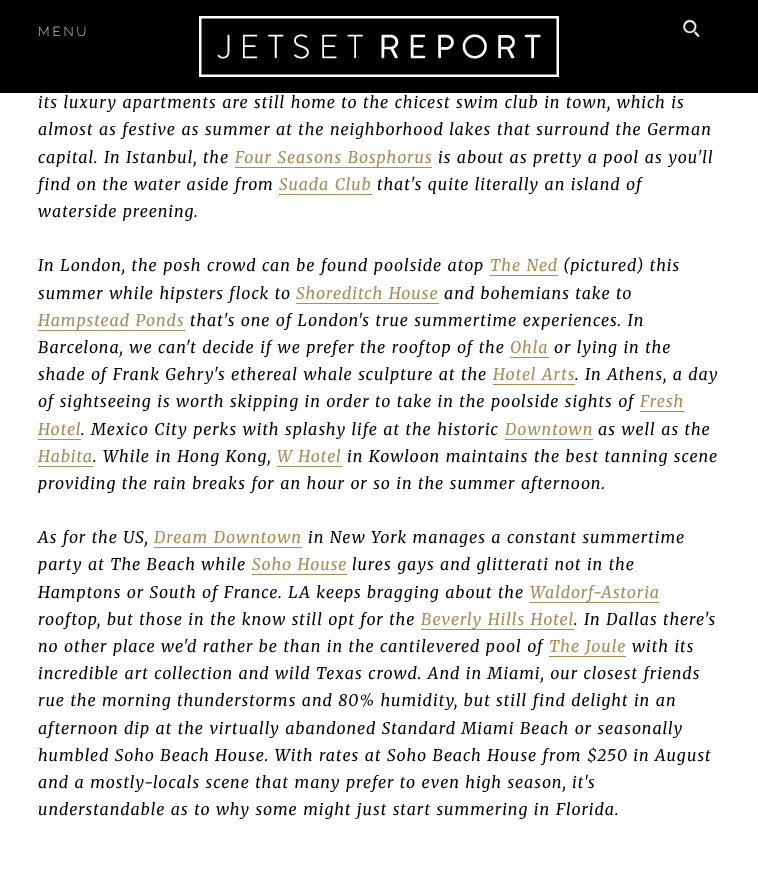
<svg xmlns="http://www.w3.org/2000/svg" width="758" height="870">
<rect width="100%" height="100%" fill="#fff"/>
<rect width="758" height="93" fill="#000"/>
<text x="38" y="36" style="font-family:Raleway;font-size:13px;font-weight:200;letter-spacing:3px;fill:#fff">MENU</text>
<image x="199" y="16" width="360" height="61" href="media/1.png"/>
<image x="682" y="19" width="18" height="19" href="media/2.png"/>
<text x="38" y="108" word-spacing="0.9" style="font-family:Merriweather;font-size:16px;font-style:italic;letter-spacing:1px;fill:#000">its luxury apartments are still home to the chicest swim club in</text>
<text x="566" y="108" word-spacing="0.9" style="font-family:Merriweather;font-size:16px;font-style:italic;letter-spacing:1px;fill:#000">town, which is</text>
<text x="38" y="135" word-spacing="0.9" style="font-family:Merriweather;font-size:16px;font-style:italic;letter-spacing:1px;fill:#000">almost as festive as summer at the neighborhood lakes</text>
<text x="497" y="135" word-spacing="0.9" style="font-family:Merriweather;font-size:16px;font-style:italic;letter-spacing:1px;fill:#000">that surround the German</text>
<text x="38" y="163" word-spacing="0.9" style="font-family:Merriweather;font-size:16px;font-style:italic;letter-spacing:1px;fill:#000">capital. In Istanbul, the</text>
<rect x="235" y="167" width="197" height="1" fill="#a58d53"/>
<text x="235" y="163" word-spacing="0.9" style="font-family:Merriweather;font-size:16px;font-style:italic;letter-spacing:1px;fill:#a58d53">Four Seasons Bosphorus</text>
<text x="438" y="163" word-spacing="0.9" style="font-family:Merriweather;font-size:16px;font-style:italic;letter-spacing:1px;fill:#000">is about as pretty a pool as you'll</text>
<text x="38" y="190" word-spacing="0.9" style="font-family:Merriweather;font-size:16px;font-style:italic;letter-spacing:1px;fill:#000">find on the water aside from</text>
<text x="279" y="190" word-spacing="0.9" style="font-family:Merriweather;font-size:16px;font-style:italic;letter-spacing:1px;fill:#a58d53">Suada Club</text>
<rect x="279" y="194" width="93" height="1" fill="#a58d53"/>
<text x="377" y="190" word-spacing="0.9" style="font-family:Merriweather;font-size:16px;font-style:italic;letter-spacing:1px;fill:#000">that's quite literally an island of</text>
<text x="38" y="217" word-spacing="0.9" style="font-family:Merriweather;font-size:16px;font-style:italic;letter-spacing:1px;fill:#000">waterside preening.</text>
<text x="38" y="271" word-spacing="0.9" style="font-family:Merriweather;font-size:16px;font-style:italic;letter-spacing:1px;fill:#000">In London, the posh crowd can be found poolside atop</text>
<text x="490" y="271" word-spacing="0.9" style="font-family:Merriweather;font-size:16px;font-style:italic;letter-spacing:1px;fill:#a58d53">The Ned</text>
<rect x="490" y="275" width="68" height="1" fill="#a58d53"/>
<text x="563" y="271" word-spacing="0.9" style="font-family:Merriweather;font-size:16px;font-style:italic;letter-spacing:1px;fill:#000">(pictured) this</text>
<text x="38" y="299" word-spacing="0.9" style="font-family:Merriweather;font-size:16px;font-style:italic;letter-spacing:1px;fill:#000">summer while hipsters flock to</text>
<text x="296" y="299" word-spacing="0.9" style="font-family:Merriweather;font-size:16px;font-style:italic;letter-spacing:1px;fill:#a58d53">Shoreditch House</text>
<rect x="296" y="303" width="143" height="1" fill="#a58d53"/>
<text x="444" y="299" word-spacing="0.9" style="font-family:Merriweather;font-size:16px;font-style:italic;letter-spacing:1px;fill:#000">and bohemians take to</text>
<rect x="38" y="330" width="147" height="1" fill="#a58d53"/>
<text x="38" y="326" word-spacing="0.9" style="font-family:Merriweather;font-size:16px;font-style:italic;letter-spacing:1px;fill:#a58d53">Hampstead Ponds</text>
<text x="190" y="326" word-spacing="0.9" style="font-family:Merriweather;font-size:16px;font-style:italic;letter-spacing:1px;fill:#000">that's one of London's true summertime experiences. In</text>
<text x="38" y="353" word-spacing="0.9" style="font-family:Merriweather;font-size:16px;font-style:italic;letter-spacing:1px;fill:#000">Barcelona, we can't decide if we prefer the rooftop of the</text>
<text x="510" y="353" style="font-family:Merriweather;font-size:16px;font-style:italic;letter-spacing:1px;fill:#a58d53">Ohla</text>
<rect x="510" y="357" width="39" height="1" fill="#a58d53"/>
<text x="554" y="353" word-spacing="0.9" style="font-family:Merriweather;font-size:16px;font-style:italic;letter-spacing:1px;fill:#000">or lying in the</text>
<text x="38" y="380" word-spacing="0.9" style="font-family:Merriweather;font-size:16px;font-style:italic;letter-spacing:1px;fill:#000">shade of Frank Gehry's ethereal whale sculpture at the</text>
<text x="493" y="380" word-spacing="0.9" style="font-family:Merriweather;font-size:16px;font-style:italic;letter-spacing:1px;fill:#a58d53">Hotel Arts</text>
<rect x="493" y="384" width="82" height="1" fill="#a58d53"/>
<text x="575" y="380" word-spacing="0.9" style="font-family:Merriweather;font-size:16px;font-style:italic;letter-spacing:1px;fill:#000">. In Athens, a day</text>
<text x="38" y="407" word-spacing="0.9" style="font-family:Merriweather;font-size:16px;font-style:italic;letter-spacing:1px;fill:#000">of sightseeing is worth skipping in order to take in the poolside sights of</text>
<text x="640" y="407" style="font-family:Merriweather;font-size:16px;font-style:italic;letter-spacing:1px;fill:#a58d53">Fresh</text>
<rect x="640" y="411" width="44" height="1" fill="#a58d53"/>
<text x="38" y="435" style="font-family:Merriweather;font-size:16px;font-style:italic;letter-spacing:1px;fill:#a58d53">Hotel</text>
<rect x="38" y="439" width="43" height="1" fill="#a58d53"/>
<text x="81" y="435" word-spacing="0.9" style="font-family:Merriweather;font-size:16px;font-style:italic;letter-spacing:1px;fill:#000">. Mexico City perks with splashy life at the historic</text>
<text x="505" y="435" style="font-family:Merriweather;font-size:16px;font-style:italic;letter-spacing:1px;fill:#a58d53">Downtown</text>
<rect x="505" y="439" width="88" height="1" fill="#a58d53"/>
<text x="598" y="435" word-spacing="0.9" style="font-family:Merriweather;font-size:16px;font-style:italic;letter-spacing:1px;fill:#000">as well as the</text>
<text x="38" y="462" style="font-family:Merriweather;font-size:16px;font-style:italic;letter-spacing:1px;fill:#a58d53">Habita</text>
<rect x="38" y="466" width="55" height="1" fill="#a58d53"/>
<text x="93" y="462" word-spacing="0.9" style="font-family:Merriweather;font-size:16px;font-style:italic;letter-spacing:1px;fill:#000">. While in Hong Kong,</text>
<text x="277" y="462" word-spacing="0.9" style="font-family:Merriweather;font-size:16px;font-style:italic;letter-spacing:1px;fill:#a58d53">W Hotel</text>
<rect x="277" y="466" width="65" height="1" fill="#a58d53"/>
<text x="347" y="462" word-spacing="0.9" style="font-family:Merriweather;font-size:16px;font-style:italic;letter-spacing:1px;fill:#000">in Kowloon maintains the best tanning scene</text>
<text x="38" y="489" word-spacing="0.9" style="font-family:Merriweather;font-size:16px;font-style:italic;letter-spacing:1px;fill:#000">providing the rain breaks for an hour or so in the summer afternoon.</text>
<text x="38" y="543" word-spacing="0.9" style="font-family:Merriweather;font-size:16px;font-style:italic;letter-spacing:1px;fill:#000">As for the US,</text>
<text x="154" y="543" word-spacing="0.9" style="font-family:Merriweather;font-size:16px;font-style:italic;letter-spacing:1px;fill:#a58d53">Dream Downtown</text>
<rect x="154" y="547" width="148" height="1" fill="#a58d53"/>
<text x="308" y="543" word-spacing="0.9" style="font-family:Merriweather;font-size:16px;font-style:italic;letter-spacing:1px;fill:#000">in New York manages a constant summertime</text>
<text x="38" y="570" word-spacing="0.9" style="font-family:Merriweather;font-size:16px;font-style:italic;letter-spacing:1px;fill:#000">party at The Beach while</text>
<text x="252" y="570" word-spacing="0.9" style="font-family:Merriweather;font-size:16px;font-style:italic;letter-spacing:1px;fill:#a58d53">Soho House</text>
<rect x="252" y="574" width="95" height="1" fill="#a58d53"/>
<text x="352" y="570" word-spacing="0.9" style="font-family:Merriweather;font-size:16px;font-style:italic;letter-spacing:1px;fill:#000">lures gays and glitterati not in the</text>
<text x="38" y="598" word-spacing="0.9" style="font-family:Merriweather;font-size:16px;font-style:italic;letter-spacing:1px;fill:#000">Hamptons or South of France. LA keeps bragging about the</text>
<text x="530" y="598" style="font-family:Merriweather;font-size:16px;font-style:italic;letter-spacing:1px;fill:#a58d53">Waldorf-Astoria</text>
<rect x="530" y="602" width="129" height="1" fill="#a58d53"/>
<text x="38" y="625" word-spacing="0.9" style="font-family:Merriweather;font-size:16px;font-style:italic;letter-spacing:1px;fill:#000">rooftop, but those in the know still opt for the</text>
<text x="421" y="625" word-spacing="0.9" style="font-family:Merriweather;font-size:16px;font-style:italic;letter-spacing:1px;fill:#a58d53">Beverly Hills Hotel</text>
<rect x="421" y="629" width="153" height="1" fill="#a58d53"/>
<text x="574" y="625" style="font-family:Merriweather;font-size:16px;font-style:italic;letter-spacing:1px;fill:#000">.</text>
<text x="584" y="625" word-spacing="0.9" style="font-family:Merriweather;font-size:16px;font-style:italic;letter-spacing:1px;fill:#000">In Dallas there's</text>
<text x="38" y="652" word-spacing="0.9" style="font-family:Merriweather;font-size:16px;font-style:italic;letter-spacing:1px;fill:#000">no other place we'd rather be than in the</text>
<text x="380" y="652" word-spacing="0.9" style="font-family:Merriweather;font-size:16px;font-style:italic;letter-spacing:1px;fill:#000">cantilevered pool of</text>
<text x="549" y="652" word-spacing="0.9" style="font-family:Merriweather;font-size:16px;font-style:italic;letter-spacing:1px;fill:#a58d53">The Joule</text>
<rect x="549" y="656" width="77" height="1" fill="#a58d53"/>
<text x="632" y="652" word-spacing="0.9" style="font-family:Merriweather;font-size:16px;font-style:italic;letter-spacing:1px;fill:#000">with its</text>
<text x="38" y="679" word-spacing="0.9" style="font-family:Merriweather;font-size:16px;font-style:italic;letter-spacing:1px;fill:#000">incredible art collection and</text>
<text x="275" y="679" word-spacing="0.9" style="font-family:Merriweather;font-size:16px;font-style:italic;letter-spacing:1px;fill:#000">wild Texas crowd. And in Miami, our closest friends</text>
<text x="38" y="706" word-spacing="0.9" style="font-family:Merriweather;font-size:16px;font-style:italic;letter-spacing:1px;fill:#000">rue the morning</text>
<text x="177" y="706" word-spacing="0.9" style="font-family:Merriweather;font-size:16px;font-style:italic;letter-spacing:1px;fill:#000">thunderstorms and 80% humidity, but still find delight in an</text>
<text x="38" y="734" style="font-family:Merriweather;font-size:16px;font-style:italic;letter-spacing:1px;fill:#000">afternoon</text>
<text x="124" y="734" word-spacing="0.9" style="font-family:Merriweather;font-size:16px;font-style:italic;letter-spacing:1px;fill:#000">dip at the virtually abandoned Standard Miami Beach or seasonally</text>
<text x="38" y="761" word-spacing="0.9" style="font-family:Merriweather;font-size:16px;font-style:italic;letter-spacing:1px;fill:#000">humbled Soho Beach House. With rates at Soho Beach House from $250 in</text>
<text x="655" y="761" style="font-family:Merriweather;font-size:16px;font-style:italic;letter-spacing:1px;fill:#000">August</text>
<text x="38" y="788" word-spacing="0.9" style="font-family:Merriweather;font-size:16px;font-style:italic;letter-spacing:1px;fill:#000">and a mostly-locals scene that many prefer to even high season,</text>
<text x="572" y="788" style="font-family:Merriweather;font-size:16px;font-style:italic;letter-spacing:1px;fill:#000">it's</text>
<text x="38" y="815" word-spacing="0.9" style="font-family:Merriweather;font-size:16px;font-style:italic;letter-spacing:1px;fill:#000">understandable as to why some might just start summering in</text>
<text x="556" y="815" style="font-family:Merriweather;font-size:16px;font-style:italic;letter-spacing:1px;fill:#000">Florida.</text>
</svg>
